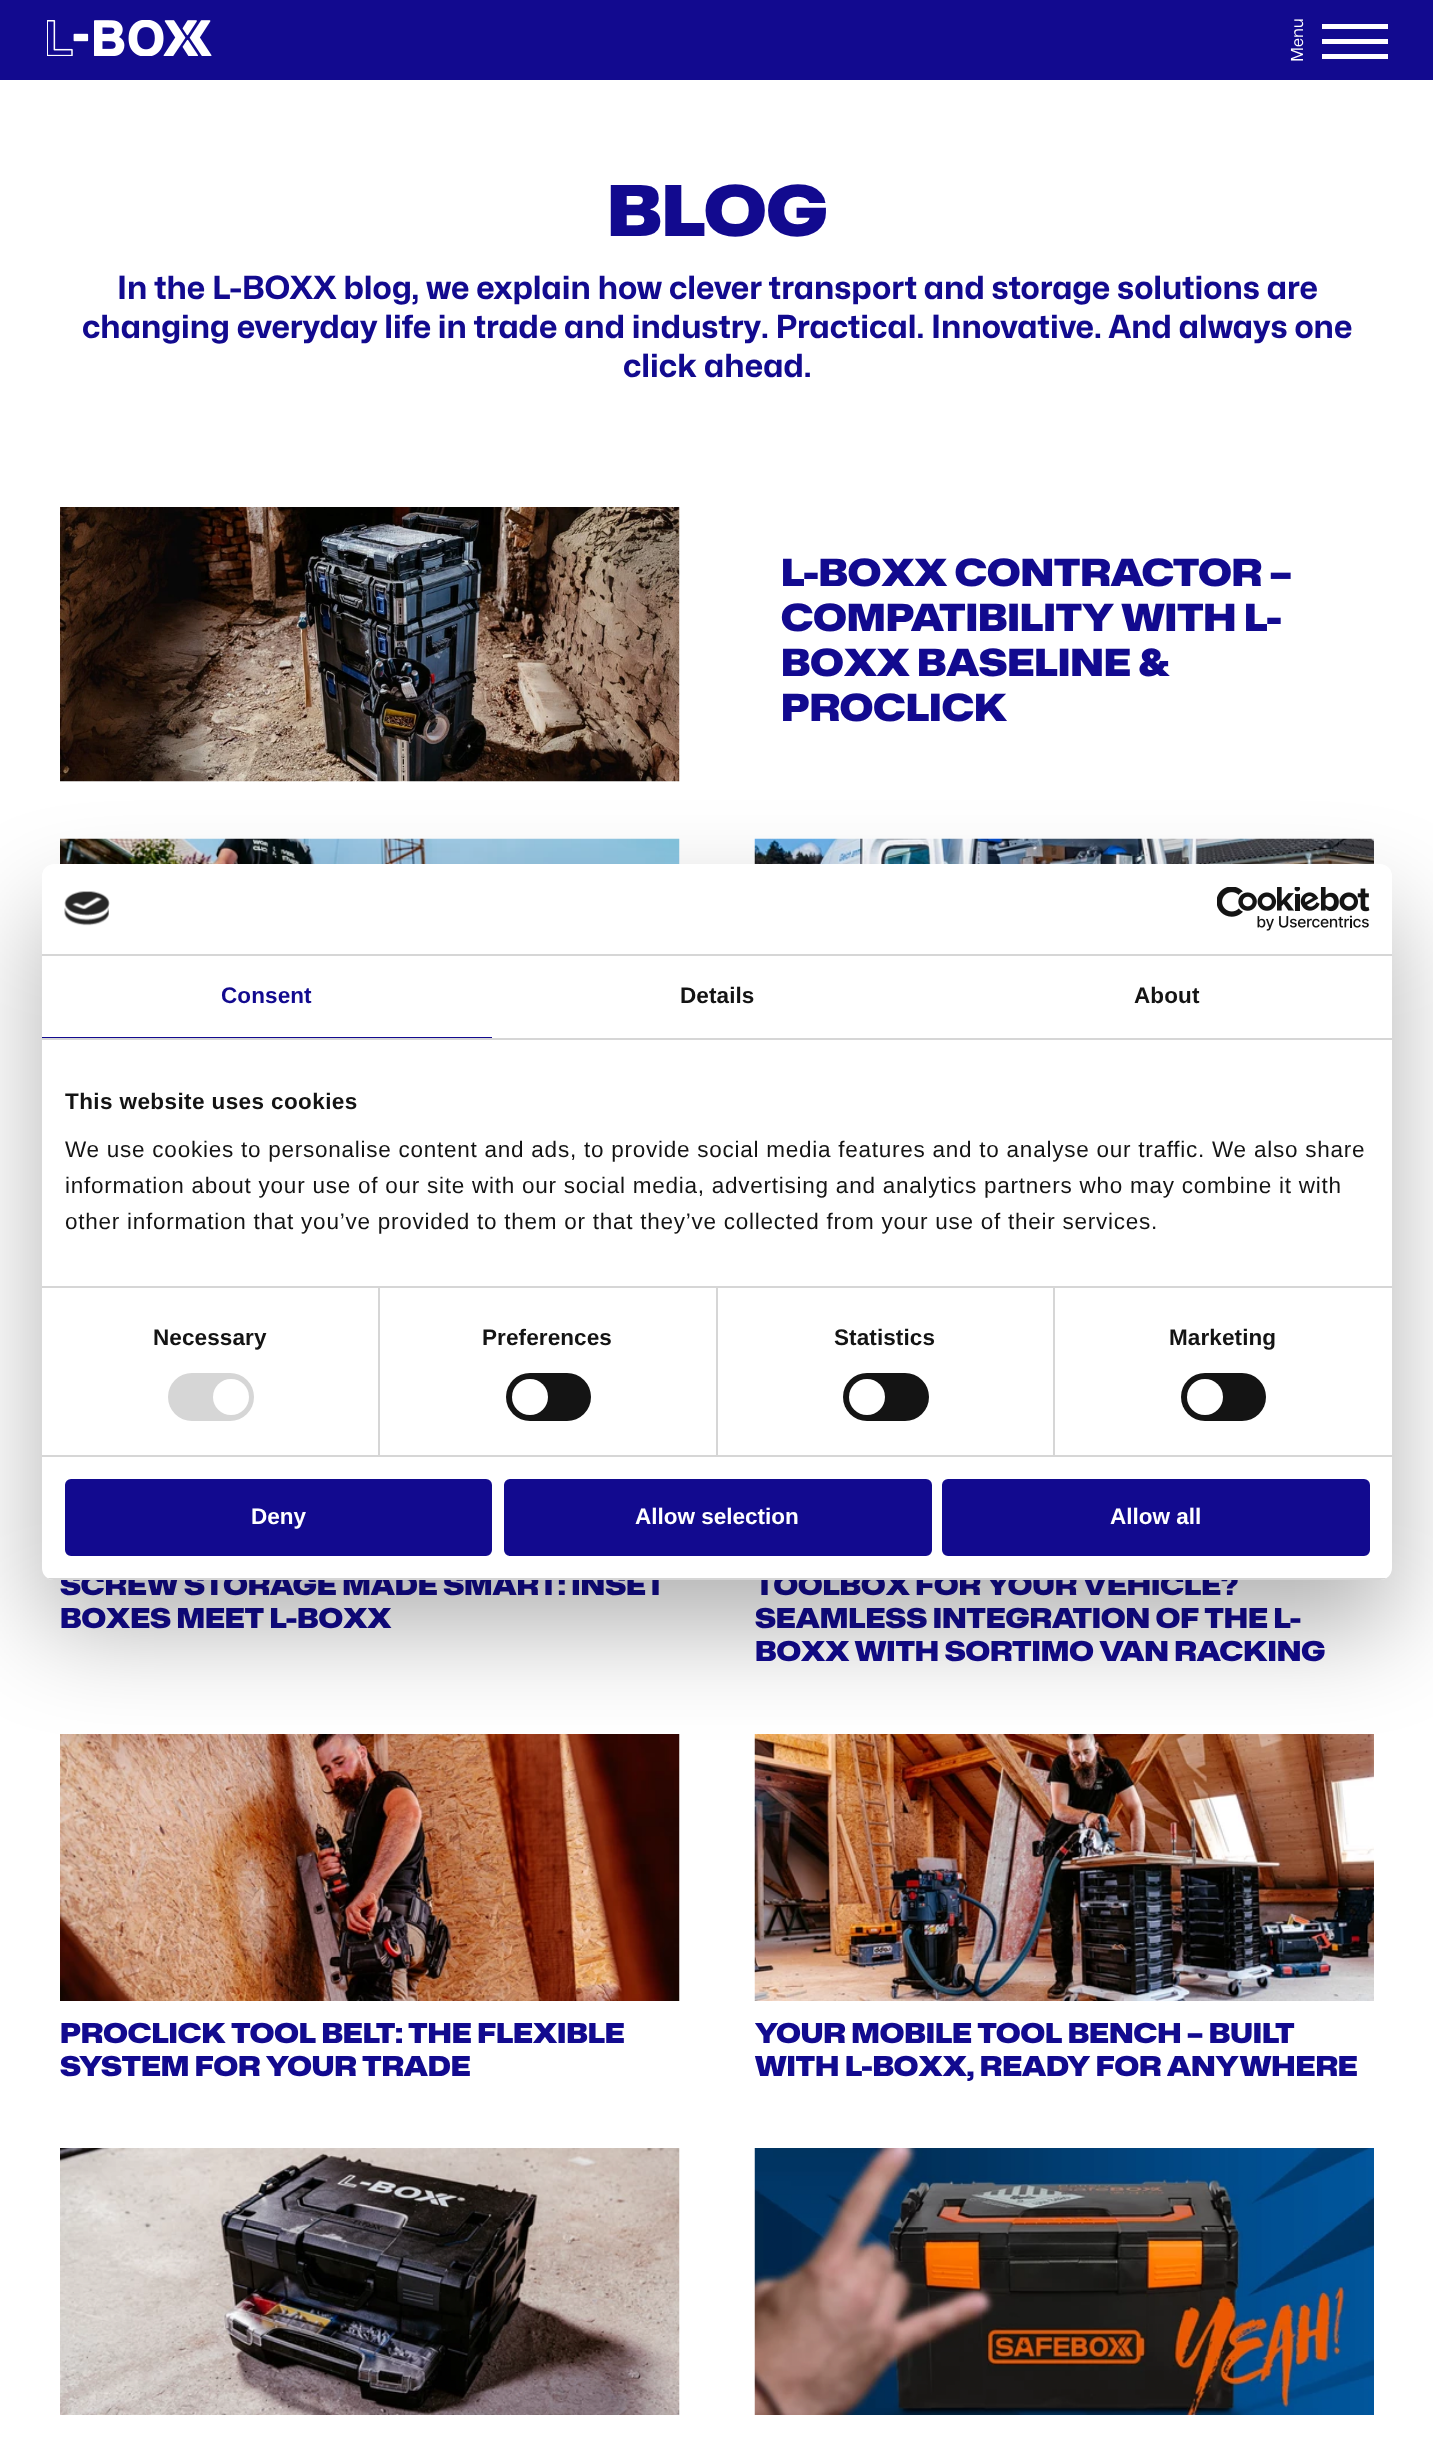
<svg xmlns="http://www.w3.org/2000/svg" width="1433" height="2442">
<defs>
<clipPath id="clip1"><rect x="42" y="864" width="1350" height="716" rx="12"/></clipPath>
</defs>
<rect width="100%" height="100%" fill="#fff"/>
<rect width="1433" height="80" fill="#120a8f"/>
<image x="47" y="20" width="165" height="36" href="media/1.png"/>
<text x="1303" y="62" transform="rotate(-90 1303 62)" style="font-family:Mona Sans;font-size:16.5px;fill:#fff">Menu</text>
<rect x="1322" y="24" width="66" height="5" fill="#fff"/>
<rect x="1322" y="39" width="66" height="5" fill="#fff"/>
<rect x="1322" y="54" width="66" height="5" fill="#fff"/>
<text x="607" y="236" style="font-family:Mona Sans;font-size:70px;font-weight:900;fill:#120a8f">BLOG</text>
<text x="117" y="299" style="font-family:Mona Sans;font-size:32.05px;font-weight:bold;fill:#120a8f">In the L-BOXX blog, we explain how clever transport and storage solutions are</text>
<text x="82" y="338" style="font-family:Mona Sans;font-size:32.05px;font-weight:bold;fill:#120a8f">changing everyday life in trade and industry. Practical. Innovative. And always one</text>
<text x="623" y="377" style="font-family:Mona Sans;font-size:32.05px;font-weight:bold;fill:#120a8f">click ahead.</text>
<image x="60" y="507" width="620" height="275" href="media/2.png"/>
<text x="781" y="586" style="font-family:Mona Sans;font-size:37.5px;font-weight:900;fill:#120a8f">L-BOXX CONTRACTOR –</text>
<text x="781" y="631" style="font-family:Mona Sans;font-size:37.5px;font-weight:900;fill:#120a8f">COMPATIBILITY WITH L-</text>
<text x="781" y="676" style="font-family:Mona Sans;font-size:37.5px;font-weight:900;fill:#120a8f">BOXX BASELINE &amp;</text>
<text x="781" y="721" style="font-family:Mona Sans;font-size:37.5px;font-weight:900;fill:#120a8f">PROCLICK</text>
<image x="60" y="838" width="620" height="26" href="media/3.png"/>
<image x="754" y="838" width="620" height="26" href="media/4.png"/>
<text x="60" y="1595" style="font-family:Mona Sans;font-size:27.5px;font-weight:900;fill:#120a8f">SCREW STORAGE MADE SMART: INSET</text>
<text x="60" y="1628" style="font-family:Mona Sans;font-size:27.5px;font-weight:900;fill:#120a8f">BOXES MEET L-BOXX</text>
<text x="755" y="1595" style="font-family:Mona Sans;font-size:27.5px;font-weight:900;fill:#120a8f">TOOLBOX FOR YOUR VEHICLE?</text>
<text x="755" y="1628" style="font-family:Mona Sans;font-size:27.5px;font-weight:900;fill:#120a8f">SEAMLESS INTEGRATION OF THE L-</text>
<text x="755" y="1661" style="font-family:Mona Sans;font-size:27.5px;font-weight:900;fill:#120a8f">BOXX WITH SORTIMO VAN RACKING</text>
<image x="60" y="1734" width="620" height="267" href="media/5.png"/>
<text x="60" y="2043" style="font-family:Mona Sans;font-size:27.5px;font-weight:900;fill:#120a8f">PROCLICK TOOL BELT: THE FLEXIBLE</text>
<text x="60" y="2076" style="font-family:Mona Sans;font-size:27.5px;font-weight:900;fill:#120a8f">SYSTEM FOR YOUR TRADE</text>
<image x="754" y="1734" width="620" height="267" href="media/6.png"/>
<text x="755" y="2043" style="font-family:Mona Sans;font-size:27.5px;font-weight:900;fill:#120a8f">YOUR MOBILE TOOL BENCH – BUILT</text>
<text x="755" y="2076" style="font-family:Mona Sans;font-size:27.5px;font-weight:900;fill:#120a8f">WITH L-BOXX, READY FOR ANYWHERE</text>
<image x="60" y="2148" width="620" height="267" href="media/7.png"/>
<image x="754" y="2148" width="620" height="267" href="media/8.png"/>
<rect x="42" y="912" width="1350" height="716" rx="12" fill="#0000004d" filter="blur(51px)"/>
<rect x="42" y="864" width="1350" height="716" rx="12" fill="#fff"/>
<rect x="42" y="954" width="1350" height="2" fill="#d6d6d6"/>
<image x="64" y="891" width="46" height="35" href="media/9.png"/>
<image x="1217" y="887" width="153" height="44" href="media/10.png"/>
<rect x="42" y="1038" width="1350" height="2" fill="#d6d6d6"/>
<rect x="42" y="1037" width="450" height="1" fill="#120a8f"/>
<text x="221" y="1003" style="font-family:Liberation Sans;font-size:22.5px;font-weight:bold;letter-spacing:0.1px;fill:#120a8f">Consent</text>
<text x="680" y="1003" style="font-family:Liberation Sans;font-size:22.5px;font-weight:bold;letter-spacing:0.1px;fill:#141414">Details</text>
<text x="1134" y="1003" style="font-family:Liberation Sans;font-size:22.5px;font-weight:bold;letter-spacing:0.1px;fill:#141414">About</text>
<rect x="378" y="1287" width="2" height="168" fill="#d6d6d6"/>
<rect x="716" y="1287" width="2" height="168" fill="#d6d6d6"/>
<rect x="1053" y="1287" width="2" height="168" fill="#d6d6d6"/>
<rect x="42" y="1286" width="1350" height="2" fill="#d6d6d6"/>
<text x="65" y="1109" style="font-family:Liberation Sans;font-size:22.5px;font-weight:bold;letter-spacing:0.4px;fill:#141414">This website uses cookies</text>
<text x="65" y="1157" style="font-family:Liberation Sans;font-size:22.5px;letter-spacing:0.75px;fill:#141414">We use cookies to personalise content and ads, to provide social media features and to analyse our traffic. We also share</text>
<text x="65" y="1193" style="font-family:Liberation Sans;font-size:22.5px;letter-spacing:0.75px;fill:#141414">information about your use of our site with our social media, advertising and analytics partners who may combine it with</text>
<text x="65" y="1229" style="font-family:Liberation Sans;font-size:22.5px;letter-spacing:0.75px;fill:#141414">other information that you’ve provided to them or that they’ve collected from your use of their services.</text>
<rect x="42" y="1455" width="1350" height="2" fill="#d6d6d6"/>
<text x="153" y="1345" style="font-family:Liberation Sans;font-size:22.5px;font-weight:bold;letter-spacing:0.1px;fill:#141414">Necessary</text>
<rect x="168" y="1373" width="86" height="48" rx="24" fill="#d6d6d6"/>
<circle cx="231" cy="1397" r="18" fill="#fff"/>
<text x="482" y="1345" style="font-family:Liberation Sans;font-size:22.5px;font-weight:bold;letter-spacing:0.1px;fill:#141414">Preferences</text>
<rect x="506" y="1373" width="85" height="48" rx="24" fill="#141414"/>
<circle cx="530" cy="1397" r="18" fill="#fff"/>
<text x="834" y="1345" style="font-family:Liberation Sans;font-size:22.5px;font-weight:bold;letter-spacing:0.1px;fill:#141414">Statistics</text>
<rect x="843" y="1373" width="86" height="48" rx="24" fill="#141414"/>
<circle cx="867" cy="1397" r="18" fill="#fff"/>
<text x="1169" y="1345" style="font-family:Liberation Sans;font-size:22.5px;font-weight:bold;letter-spacing:0.1px;fill:#141414">Marketing</text>
<rect x="1181" y="1373" width="85" height="48" rx="24" fill="#141414"/>
<circle cx="1205" cy="1397" r="18" fill="#fff"/>
<g clip-path="url(#clip1)">
<rect x="42" y="1578" width="1350" height="2" fill="#d6d6d6"/>
</g>
<rect x="66.5" y="1480.5" width="424" height="74" rx="4.5" fill="#120a8f" stroke="#120a8f" stroke-width="3"/>
<text x="251" y="1524" style="font-family:Liberation Sans;font-size:22.5px;font-weight:bold;fill:#fff">Deny</text>
<rect x="505.5" y="1480.5" width="425" height="74" rx="4.5" fill="#120a8f" stroke="#120a8f" stroke-width="3"/>
<text x="635" y="1524" style="font-family:Liberation Sans;font-size:22.5px;font-weight:bold;fill:#fff">Allow selection</text>
<rect x="943.5" y="1480.5" width="425" height="74" rx="4.5" fill="#120a8f" stroke="#120a8f" stroke-width="3"/>
<text x="1110" y="1524" style="font-family:Liberation Sans;font-size:22.5px;font-weight:bold;fill:#fff">Allow all</text>
</svg>
